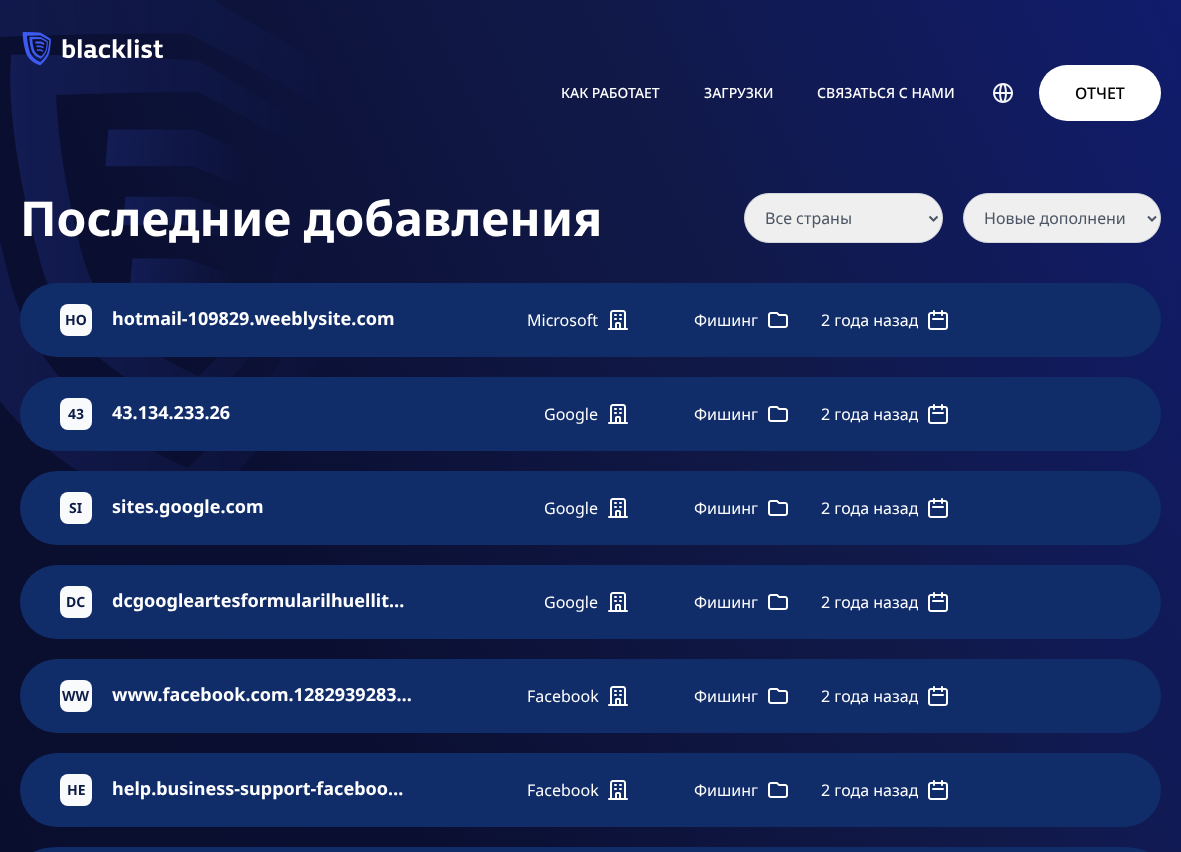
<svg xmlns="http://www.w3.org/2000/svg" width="1181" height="852">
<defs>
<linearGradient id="g1" gradientUnits="userSpaceOnUse" x1="-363" y1="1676" x2="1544" y2="745"><stop offset="0" stop-color="#090d29"/><stop offset="0.25" stop-color="#0a0e2d"/><stop offset="0.5" stop-color="#0a0f31"/><stop offset="0.75" stop-color="#111949"/><stop offset="1" stop-color="#101c6c"/></linearGradient>
<clipPath id="clip1"><rect x="821" y="308" width="97" height="24"/></clipPath>
<clipPath id="clip2"><rect x="821" y="402" width="97" height="24"/></clipPath>
<clipPath id="clip3"><rect x="821" y="496" width="97" height="24"/></clipPath>
<clipPath id="clip4"><rect x="821" y="590" width="97" height="24"/></clipPath>
<clipPath id="clip5"><rect x="821" y="684" width="97" height="24"/></clipPath>
<clipPath id="clip6"><rect x="821" y="778" width="97" height="24"/></clipPath>
</defs>
<rect width="100%" height="100%" fill="#fff"/>
<rect width="1181" height="852" fill="url(#g1)"/>
<image x="0" y="0" width="317" height="471" href="media/1.png"/>
<image x="22" y="32" width="142" height="33" href="media/2.png"/>
<text x="561" y="98" style="font-family:Noto Sans;font-size:14px;font-weight:500;fill:#fff">КАК РАБОТАЕТ</text>
<text x="704" y="98" style="font-family:Noto Sans;font-size:14px;font-weight:500;fill:#fff">ЗАГРУЗКИ</text>
<text x="817" y="98" style="font-family:Noto Sans;font-size:14px;font-weight:500;fill:#fff">СВЯЗАТЬСЯ С НАМИ</text>
<image x="993" y="83" width="20" height="20" href="media/3.png"/>
<rect x="1039" y="65" width="122" height="56" rx="28" fill="#fff"/>
<text x="1075" y="99" style="font-family:Noto Sans;font-size:16px;font-weight:500;fill:#000">ОТЧЕТ</text>
<text x="20" y="236" style="font-family:Noto Sans;font-size:48px;font-weight:bold;fill:#fff">Последние добавления</text>
<rect x="744.5" y="193.5" width="198" height="49" rx="24.5" fill="#efefef" stroke="#d1d5db"/>
<path d="M929.5 216.5l4 4l4-4" fill="none" stroke="#4b5563" stroke-width="2"/>
<text x="765" y="224" style="font-family:Noto Sans;font-size:16px;fill:#4b5563">Все страны</text>
<rect x="963.5" y="193.5" width="197" height="49" rx="24.5" fill="#efefef" stroke="#d1d5db"/>
<path d="M1148 216.5l4 4l4-4" fill="none" stroke="#4b5563" stroke-width="2"/>
<text x="984" y="224" style="font-family:Noto Sans;font-size:16px;fill:#4b5563">Новые дополнени</text>
<rect x="20" y="283" width="1141" height="74" rx="37" fill="#102c69"/>
<rect x="60" y="304" width="32" height="32" rx="8" fill="#f9fafb"/>
<text x="65" y="325" style="font-family:Noto Sans;font-size:14px;font-weight:bold;fill:#0c1c47">HO</text>
<text x="112" y="325" style="font-family:Noto Sans;font-size:18px;font-weight:bold;fill:#fff">hotmail-109829.weeblysite.com</text>
<text x="527" y="326" style="font-family:Noto Sans;font-size:16px;fill:#fff">Microsoft</text>
<image x="608" y="310" width="20" height="20" href="media/4.png"/>
<text x="694" y="326" style="font-family:Noto Sans;font-size:16px;fill:#fff">Фишинг</text>
<image x="768" y="312" width="20" height="16" href="media/5.png"/>
<g clip-path="url(#clip1)">
<text x="821" y="326" style="font-family:Noto Sans;font-size:16px;fill:#fff">2 года назад</text>
</g>
<image x="928" y="310" width="20" height="20" href="media/6.png"/>
<rect x="20" y="377" width="1141" height="74" rx="37" fill="#102c69"/>
<rect x="60" y="398" width="32" height="32" rx="8" fill="#f9fafb"/>
<text x="68" y="419" style="font-family:Noto Sans;font-size:14px;font-weight:bold;fill:#0c1c47">43</text>
<text x="112" y="419" style="font-family:Noto Sans;font-size:18px;font-weight:bold;fill:#fff">43.134.233.26</text>
<text x="544" y="420" style="font-family:Noto Sans;font-size:16px;fill:#fff">Google</text>
<image x="608" y="404" width="20" height="20" href="media/4.png"/>
<text x="694" y="420" style="font-family:Noto Sans;font-size:16px;fill:#fff">Фишинг</text>
<image x="768" y="406" width="20" height="16" href="media/5.png"/>
<g clip-path="url(#clip2)">
<text x="821" y="420" style="font-family:Noto Sans;font-size:16px;fill:#fff">2 года назад</text>
</g>
<image x="928" y="404" width="20" height="20" href="media/6.png"/>
<rect x="20" y="471" width="1141" height="74" rx="37" fill="#102c69"/>
<rect x="60" y="492" width="32" height="32" rx="8" fill="#f9fafb"/>
<text x="69" y="513" style="font-family:Noto Sans;font-size:14px;font-weight:bold;fill:#0c1c47">SI</text>
<text x="112" y="513" style="font-family:Noto Sans;font-size:18px;font-weight:bold;fill:#fff">sites.google.com</text>
<text x="544" y="514" style="font-family:Noto Sans;font-size:16px;fill:#fff">Google</text>
<image x="608" y="498" width="20" height="20" href="media/4.png"/>
<text x="694" y="514" style="font-family:Noto Sans;font-size:16px;fill:#fff">Фишинг</text>
<image x="768" y="500" width="20" height="16" href="media/5.png"/>
<g clip-path="url(#clip3)">
<text x="821" y="514" style="font-family:Noto Sans;font-size:16px;fill:#fff">2 года назад</text>
</g>
<image x="928" y="498" width="20" height="20" href="media/6.png"/>
<rect x="20" y="565" width="1141" height="74" rx="37" fill="#102c69"/>
<rect x="60" y="586" width="32" height="32" rx="8" fill="#f9fafb"/>
<text x="66" y="607" style="font-family:Noto Sans;font-size:14px;font-weight:bold;fill:#0c1c47">DC</text>
<text x="112" y="607" style="font-family:Noto Sans;font-size:18px;font-weight:bold;fill:#fff">dcgoogleartesformularilhuellit…</text>
<text x="544" y="608" style="font-family:Noto Sans;font-size:16px;fill:#fff">Google</text>
<image x="608" y="592" width="20" height="20" href="media/4.png"/>
<text x="694" y="608" style="font-family:Noto Sans;font-size:16px;fill:#fff">Фишинг</text>
<image x="768" y="594" width="20" height="16" href="media/5.png"/>
<g clip-path="url(#clip4)">
<text x="821" y="608" style="font-family:Noto Sans;font-size:16px;fill:#fff">2 года назад</text>
</g>
<image x="928" y="592" width="20" height="20" href="media/6.png"/>
<rect x="20" y="659" width="1141" height="74" rx="37" fill="#102c69"/>
<rect x="60" y="680" width="32" height="32" rx="8" fill="#f9fafb"/>
<text x="62" y="701" style="font-family:Noto Sans;font-size:14px;font-weight:bold;fill:#0c1c47">WW</text>
<text x="112" y="701" style="font-family:Noto Sans;font-size:18px;font-weight:bold;fill:#fff">www.facebook.com.1282939283…</text>
<text x="527" y="702" style="font-family:Noto Sans;font-size:16px;fill:#fff">Facebook</text>
<image x="608" y="686" width="20" height="20" href="media/4.png"/>
<text x="694" y="702" style="font-family:Noto Sans;font-size:16px;fill:#fff">Фишинг</text>
<image x="768" y="688" width="20" height="16" href="media/5.png"/>
<g clip-path="url(#clip5)">
<text x="821" y="702" style="font-family:Noto Sans;font-size:16px;fill:#fff">2 года назад</text>
</g>
<image x="928" y="686" width="20" height="20" href="media/6.png"/>
<rect x="20" y="753" width="1141" height="74" rx="37" fill="#102c69"/>
<rect x="60" y="774" width="32" height="32" rx="8" fill="#f9fafb"/>
<text x="67" y="795" style="font-family:Noto Sans;font-size:14px;font-weight:bold;fill:#0c1c47">HE</text>
<text x="112" y="795" style="font-family:Noto Sans;font-size:18px;font-weight:bold;fill:#fff">help.business-support-faceboo…</text>
<text x="527" y="796" style="font-family:Noto Sans;font-size:16px;fill:#fff">Facebook</text>
<image x="608" y="780" width="20" height="20" href="media/4.png"/>
<text x="694" y="796" style="font-family:Noto Sans;font-size:16px;fill:#fff">Фишинг</text>
<image x="768" y="782" width="20" height="16" href="media/5.png"/>
<g clip-path="url(#clip6)">
<text x="821" y="796" style="font-family:Noto Sans;font-size:16px;fill:#fff">2 года назад</text>
</g>
<image x="928" y="780" width="20" height="20" href="media/6.png"/>
<rect x="20" y="847" width="1141" height="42" rx="37" fill="#102c69"/>
</svg>
